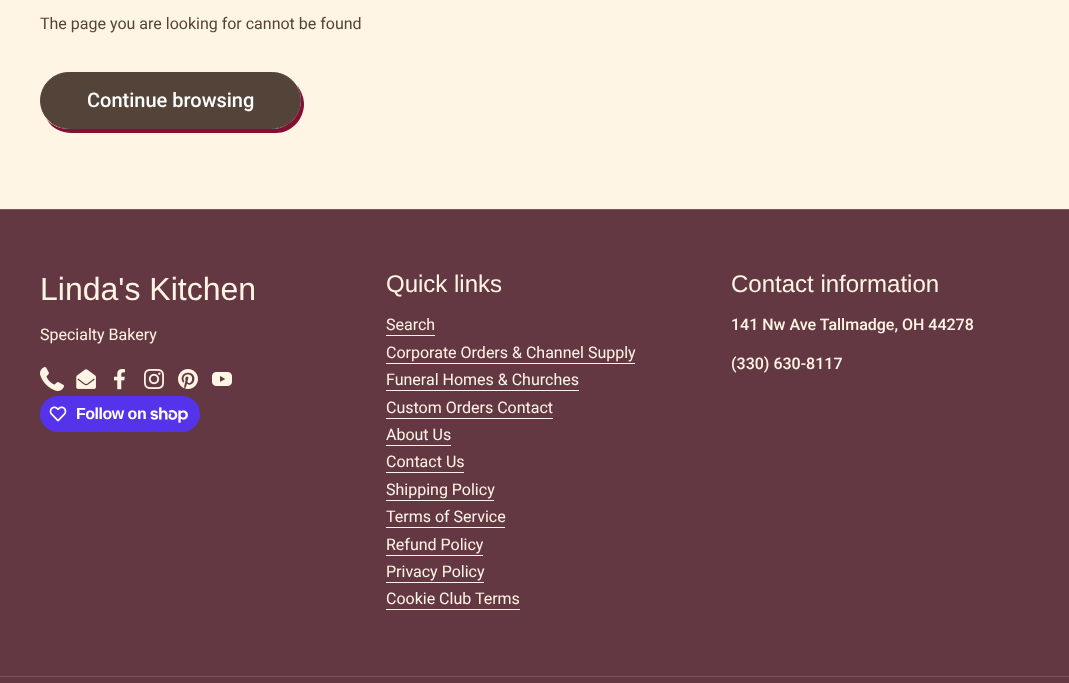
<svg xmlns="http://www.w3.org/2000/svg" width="1069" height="683">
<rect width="100%" height="100%" fill="#fff5e4"/>
<text x="40" y="29" style="font-family:Roboto;font-size:16px;fill:#534338">The page you are looking for cannot be found</text>
<path d="M47 120c5 8 14 13 25 13h204c15 0 28-13 28-29c0-7-3-13-7-19c2 5 4 10 4 15c0 16-13 29-29 29h-204c-8 0-16-4-21-9z" fill="#850e35"/>
<rect x="40.5" y="72.5" width="260" height="56" rx="28" fill="#534338" stroke="#534338"/>
<text x="87" y="107" style="font-family:Roboto;font-size:20px;font-weight:500;fill:#fff">Continue browsing</text>
<rect y="210" width="1069" height="473" fill="#643843"/>
<rect y="209" width="1069" height="1" fill="#7b545b"/>
<text x="40" y="300" style="font-family:Arimo;font-size:32px;fill:#fff5e4">Linda's Kitchen</text>
<text x="40" y="340" style="font-family:Roboto;font-size:16px;fill:#fff5e4">Specialty Bakery</text>
<image x="40" y="367" width="24" height="24" href="media/1.png"/>
<image x="76" y="369" width="20" height="20" href="media/2.png"/>
<image x="114" y="369" width="11" height="21" href="media/3.png"/>
<image x="144" y="369" width="20" height="20" href="media/4.png"/>
<image x="178" y="369" width="20" height="20" href="media/5.png"/>
<image x="212" y="372" width="20" height="14" href="media/6.png"/>
<rect x="40" y="396" width="160" height="36" rx="18" fill="#5433eb"/>
<image x="49" y="406" width="18" height="16" href="media/7.png"/>
<text x="76" y="419" style="font-family:Liberation Sans;font-size:16px;font-weight:bold;letter-spacing:-0.5px;fill:#fff">Follow on</text>
<image x="150" y="407" width="38" height="16" href="media/8.png"/>
<text x="386" y="292" style="font-family:Arimo;font-size:24px;fill:#fff5e4">Quick links</text>
<text x="386" y="330" style="font-family:Roboto;font-size:16px;fill:#fff5e4">Search</text>
<rect x="386" y="335" width="49" height="1" fill="#fff5e4"/>
<text x="386" y="358" style="font-family:Roboto;font-size:16px;fill:#fff5e4">Corporate Orders &amp; Channel Supply</text>
<rect x="386" y="363" width="249" height="1" fill="#fff5e4"/>
<text x="386" y="385" style="font-family:Roboto;font-size:16px;fill:#fff5e4">Funeral Homes &amp; Churches</text>
<rect x="386" y="390" width="193" height="1" fill="#fff5e4"/>
<text x="386" y="413" style="font-family:Roboto;font-size:16px;fill:#fff5e4">Custom Orders Contact</text>
<rect x="386" y="418" width="167" height="1" fill="#fff5e4"/>
<text x="386" y="440" style="font-family:Roboto;font-size:16px;fill:#fff5e4">About Us</text>
<rect x="386" y="445" width="65" height="1" fill="#fff5e4"/>
<text x="386" y="467" style="font-family:Roboto;font-size:16px;fill:#fff5e4">Contact Us</text>
<rect x="386" y="472" width="78" height="1" fill="#fff5e4"/>
<text x="386" y="495" style="font-family:Roboto;font-size:16px;fill:#fff5e4">Shipping Policy</text>
<rect x="386" y="500" width="108" height="1" fill="#fff5e4"/>
<text x="386" y="522" style="font-family:Roboto;font-size:16px;fill:#fff5e4">Terms of Service</text>
<rect x="386" y="527" width="119" height="1" fill="#fff5e4"/>
<text x="386" y="550" style="font-family:Roboto;font-size:16px;fill:#fff5e4">Refund Policy</text>
<rect x="386" y="555" width="97" height="1" fill="#fff5e4"/>
<text x="386" y="577" style="font-family:Roboto;font-size:16px;fill:#fff5e4">Privacy Policy</text>
<rect x="386" y="582" width="98" height="1" fill="#fff5e4"/>
<text x="386" y="604" style="font-family:Roboto;font-size:16px;fill:#fff5e4">Cookie Club Terms</text>
<rect x="386" y="609" width="134" height="1" fill="#fff5e4"/>
<text x="731" y="292" style="font-family:Arimo;font-size:24px;fill:#fff5e4">Contact information</text>
<text x="731" y="330" style="font-family:Roboto;font-size:16px;font-weight:500;fill:#fff5e4">141 Nw Ave Tallmadge, OH 44278</text>
<text x="731" y="369" style="font-family:Roboto;font-size:16px;font-weight:500;fill:#fff5e4">(330) 630-8117</text>
<rect y="676" width="1069" height="1" fill="#7b545b"/>
</svg>
